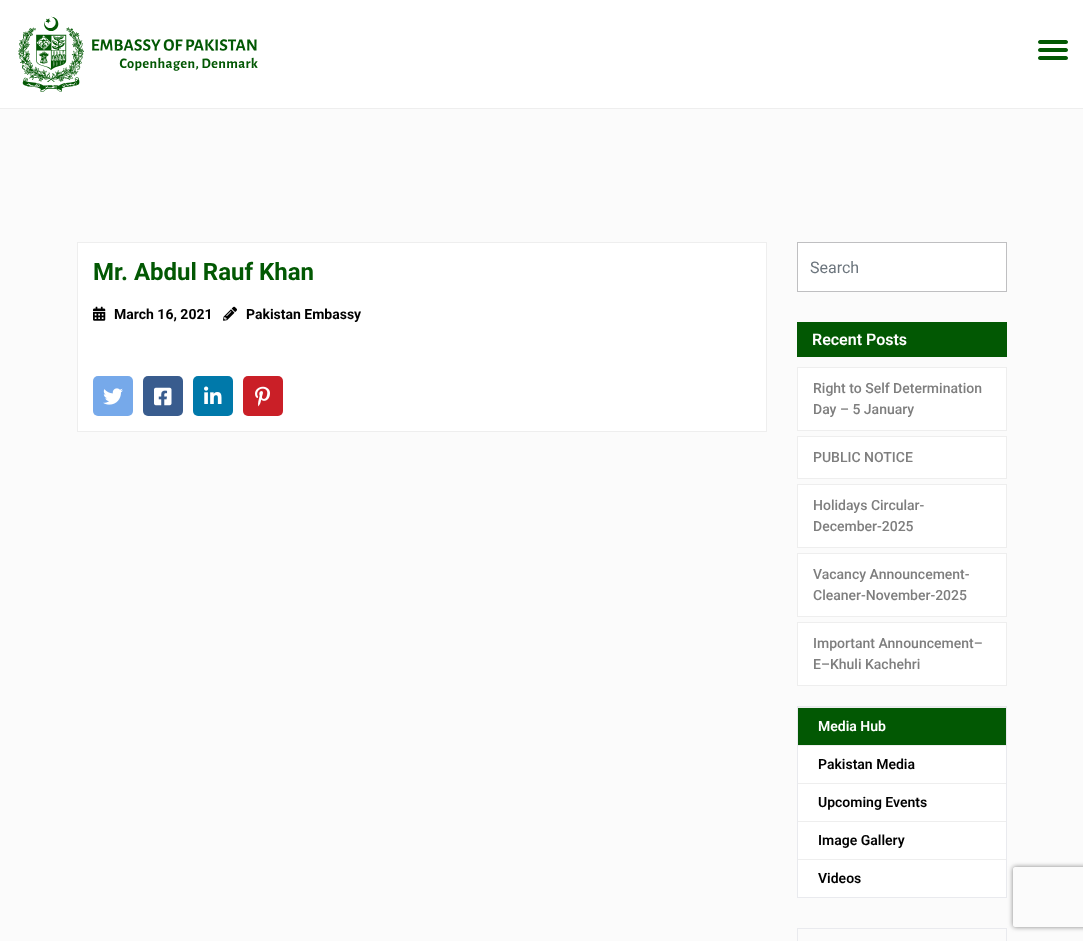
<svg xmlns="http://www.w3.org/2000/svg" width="1083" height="941">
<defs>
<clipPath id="clip1"><path d="M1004 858h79v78h-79zm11 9h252c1 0 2 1 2 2v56c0 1-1 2-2 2h-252c-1 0-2-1-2-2v-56c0-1 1-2 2-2z" clip-rule="evenodd"/></clipPath>
</defs>
<rect width="100%" height="100%" fill="#fbfbfb"/>
<rect width="1083" height="108" fill="#fff"/>
<path d="M1040 40h13v4h-13c-1 0-2-1-2-2c0-1 1-2 2-2z" fill="#025803"/>
<path d="M1053 40h13c1 0 2 1 2 2c0 1-1 2-2 2h-13z" fill="#025803"/>
<path d="M1040 48h13v4h-13c-1 0-2-1-2-2c0-1 1-2 2-2z" fill="#025803"/>
<path d="M1053 48h13c1 0 2 1 2 2c0 1-1 2-2 2h-13z" fill="#025803"/>
<path d="M1040 56h13v4h-13c-1 0-2-1-2-2c0-1 1-2 2-2z" fill="#025803"/>
<path d="M1053 56h13c1 0 2 1 2 2c0 1-1 2-2 2h-13z" fill="#025803"/>
<rect y="108" width="1083" height="1" fill="#eee"/>
<image x="18" y="16" width="240" height="76" href="media/1.png"/>
<rect x="77.5" y="242.5" width="689" height="189" fill="#fff" stroke="#eee"/>
<text x="93" y="280" style="font-family:Roboto;font-size:24px;font-weight:bold;fill:#025803">Mr. Abdul Rauf Khan</text>
<image x="93" y="306" width="13" height="15" href="media/2.png"/>
<text x="114" y="319" style="font-family:Roboto;font-size:14px;font-weight:bold;fill:#000">March 16, 2021</text>
<image x="223" y="306" width="14" height="15" href="media/3.png"/>
<text x="246" y="319" style="font-family:Roboto;font-size:14px;font-weight:bold;fill:#000">Pakistan Embassy</text>
<rect x="93" y="376" width="40" height="40" rx="5" fill="#76a9ea"/>
<image x="103" y="388" width="20" height="17" href="media/4.png"/>
<rect x="143" y="376" width="40" height="40" rx="5" fill="#395c8e"/>
<image x="154" y="387" width="18" height="19" href="media/5.png"/>
<rect x="193" y="376" width="40" height="40" rx="5" fill="#0079aa"/>
<image x="204" y="386" width="18" height="18" href="media/6.png"/>
<rect x="243" y="376" width="40" height="40" rx="5" fill="#ca1f27"/>
<image x="255" y="386" width="15" height="21" href="media/7.png"/>
<rect x="797.5" y="242.5" width="209" height="49" fill="#fff" stroke="#bfbfc1"/>
<text x="810" y="273" style="font-family:Roboto;font-size:16px;fill:#6c757d">Search</text>
<rect x="797" y="322" width="210" height="35" fill="#025803"/>
<text x="812" y="345" style="font-family:Roboto;font-size:16px;font-weight:600;fill:#fff">Recent Posts</text>
<rect x="797.5" y="367.5" width="209" height="63" fill="#fff" stroke="#eee"/>
<text x="813" y="393" style="font-family:Roboto;font-size:14px;font-weight:500;fill:#7e7e7e">Right to Self Determination</text>
<text x="813" y="414" style="font-family:Roboto;font-size:14px;font-weight:500;fill:#7e7e7e">Day – 5 January</text>
<rect x="797.5" y="436.5" width="209" height="42" fill="#fff" stroke="#eee"/>
<text x="813" y="462" style="font-family:Roboto;font-size:14px;font-weight:500;fill:#7e7e7e">PUBLIC NOTICE</text>
<rect x="797.5" y="484.5" width="209" height="63" fill="#fff" stroke="#eee"/>
<text x="813" y="510" style="font-family:Roboto;font-size:14px;font-weight:500;fill:#7e7e7e">Holidays Circular-</text>
<text x="813" y="531" style="font-family:Roboto;font-size:14px;font-weight:500;fill:#7e7e7e">December-2025</text>
<rect x="797.5" y="553.5" width="209" height="63" fill="#fff" stroke="#eee"/>
<text x="813" y="579" style="font-family:Roboto;font-size:14px;font-weight:500;fill:#7e7e7e">Vacancy Announcement-</text>
<text x="813" y="600" style="font-family:Roboto;font-size:14px;font-weight:500;fill:#7e7e7e">Cleaner-November-2025</text>
<rect x="797.5" y="622.5" width="209" height="63" fill="#fff" stroke="#eee"/>
<text x="813" y="648" style="font-family:Roboto;font-size:14px;font-weight:500;fill:#7e7e7e">Important Announcement–</text>
<text x="813" y="669" style="font-family:Roboto;font-size:14px;font-weight:500;fill:#7e7e7e">E–Khuli Kachehri</text>
<rect x="798" y="746" width="208" height="151" fill="#fff"/>
<rect x="797.5" y="706.5" width="209" height="191" fill="none" stroke="#e9eaee"/>
<rect x="798" y="707" width="208" height="1" fill="#eee"/>
<rect x="798" y="708" width="208" height="37" fill="#025803"/>
<text x="818" y="731" style="font-family:Roboto;font-size:14px;font-weight:600;fill:#fff">Media Hub</text>
<rect x="798" y="745" width="208" height="1" fill="#eee"/>
<rect x="798" y="783" width="208" height="1" fill="#eee"/>
<text x="818" y="769" style="font-family:Roboto;font-size:14px;font-weight:600;fill:#000">Pakistan Media</text>
<rect x="798" y="821" width="208" height="1" fill="#eee"/>
<text x="818" y="807" style="font-family:Roboto;font-size:14px;font-weight:600;fill:#000">Upcoming Events</text>
<rect x="798" y="859" width="208" height="1" fill="#eee"/>
<text x="818" y="845" style="font-family:Roboto;font-size:14px;font-weight:600;fill:#000">Image Gallery</text>
<text x="818" y="883" style="font-family:Roboto;font-size:14px;font-weight:600;fill:#000">Videos</text>
<rect x="797.5" y="928.5" width="209" height="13" fill="none" stroke="#e9eaee"/>
<g clip-path="url(#clip1)">
<rect x="1013" y="867" width="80" height="60" rx="2" fill="#808080" filter="blur(2.5px)"/>
</g>
</svg>
